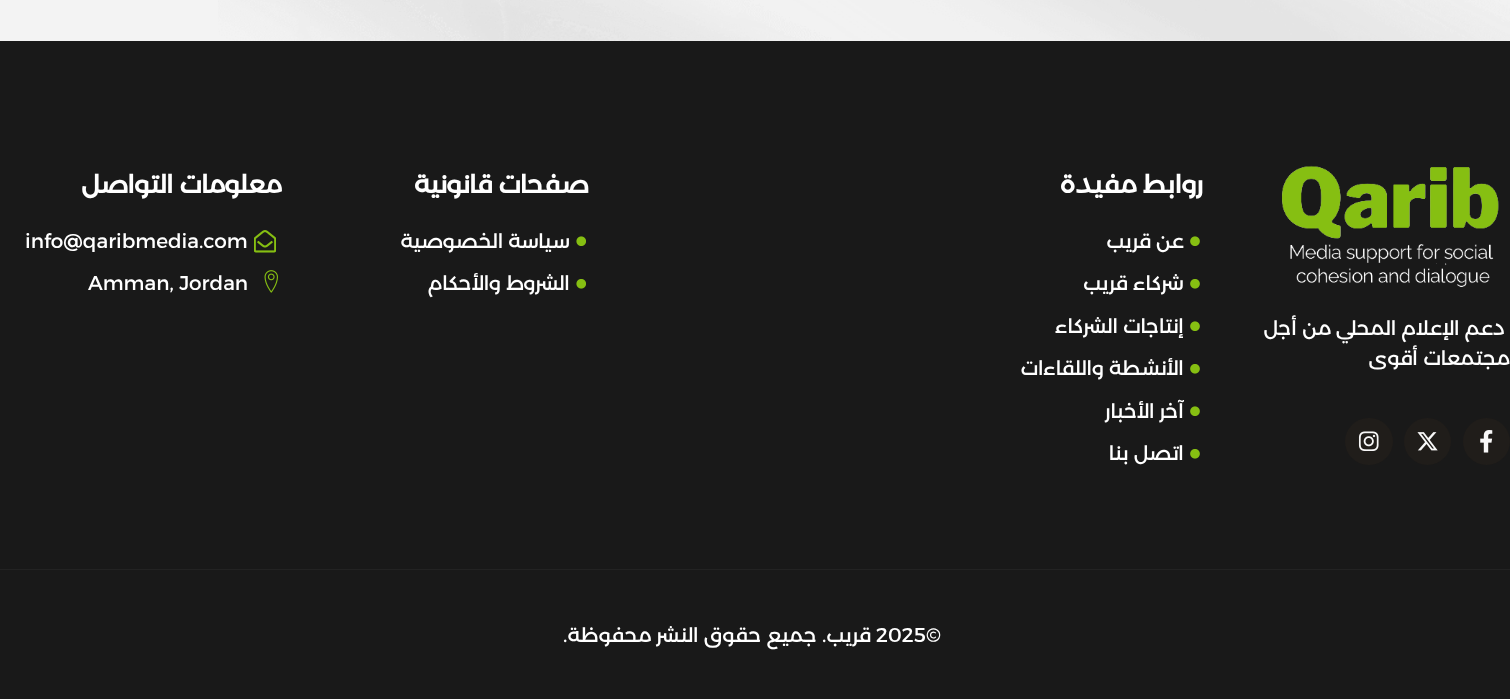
<svg xmlns="http://www.w3.org/2000/svg" width="1510" height="699">
<rect width="100%" height="100%" fill="#f3f3f3"/>
<image x="218" y="0" width="1292" height="41" href="media/1.png"/>
<rect y="41" width="1510" height="658" fill="#191919"/>
<image x="1282" y="165" width="217" height="122" href="media/2.png"/>
<text x="1505" y="335" style="font-family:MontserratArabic;font-size:20px;direction:rtl;fill:#fff">دعم الإعلام المحلي من أجل</text>
<text x="1510" y="365" style="font-family:MontserratArabic;font-size:20px;direction:rtl;fill:#fff">مجتمعات أقوى</text>
<circle cx="1486.5" cy="441.5" r="23.5" fill="#201d1a"/>
<image x="1480" y="430" width="13" height="23" href="media/3.png"/>
<circle cx="1427.5" cy="441.5" r="23.5" fill="#201d1a"/>
<image x="1417" y="432" width="21" height="19" href="media/4.png"/>
<rect x="1345" y="418" width="48" height="47" rx="23.5" fill="#201d1a"/>
<image x="1358" y="431" width="21" height="20" href="media/5.png"/>
<text x="1203" y="193" style="font-family:MontserratArabic;font-size:25px;font-weight:bold;direction:rtl;fill:#fff">روابط مفيدة</text>
<image x="1190" y="236" width="10" height="10" href="media/6.png"/>
<text x="1184" y="248" style="font-family:MontserratArabic;font-size:20px;direction:rtl;fill:#fff">عن قريب</text>
<image x="1190" y="279" width="10" height="10" href="media/7.png"/>
<text x="1184" y="290" style="font-family:MontserratArabic;font-size:20px;direction:rtl;fill:#fff">شركاء قريب</text>
<image x="1190" y="321" width="10" height="10" href="media/6.png"/>
<text x="1184" y="333" style="font-family:MontserratArabic;font-size:20px;direction:rtl;fill:#fff">إنتاجات الشركاء</text>
<image x="1190" y="364" width="10" height="10" href="media/7.png"/>
<text x="1184" y="375" style="font-family:MontserratArabic;font-size:20px;direction:rtl;fill:#fff">الأنشطة واللقاءات</text>
<image x="1190" y="406" width="10" height="10" href="media/6.png"/>
<text x="1184" y="418" style="font-family:MontserratArabic;font-size:20px;direction:rtl;fill:#fff">آخر الأخبار</text>
<image x="1190" y="449" width="10" height="10" href="media/7.png"/>
<text x="1184" y="460" style="font-family:MontserratArabic;font-size:20px;direction:rtl;fill:#fff">اتصل بنا</text>
<text x="589" y="193" style="font-family:MontserratArabic;font-size:25px;font-weight:bold;direction:rtl;fill:#fff">صفحات قانونية</text>
<image x="576" y="236" width="10" height="10" href="media/8.png"/>
<text x="570" y="248" style="font-family:MontserratArabic;font-size:20px;direction:rtl;fill:#fff">سياسة الخصوصية</text>
<image x="576" y="279" width="10" height="10" href="media/9.png"/>
<text x="570" y="290" style="font-family:MontserratArabic;font-size:20px;direction:rtl;fill:#fff">الشروط والأحكام</text>
<text x="282" y="193" style="font-family:MontserratArabic;font-size:25px;font-weight:bold;direction:rtl;fill:#fff">معلومات التواصل</text>
<image x="254" y="230" width="22" height="23" href="media/10.png"/>
<text x="25" y="248" style="font-family:MontserratArabic;font-size:20px;fill:#fff">info@qaribmedia.com</text>
<image x="264" y="270" width="14" height="23" href="media/11.png"/>
<text x="88" y="290" style="font-family:MontserratArabic;font-size:20px;fill:#fff">Amman, Jordan</text>
<rect y="569" width="1510" height="1" fill="#232323"/>
<text x="876" y="642" style="font-family:MontserratArabic;font-size:20px;fill:#fff">2025©</text>
<text x="871" y="642" style="font-family:MontserratArabic;font-size:20px;direction:rtl;fill:#fff">قريب. جميع حقوق النشر محفوظة.</text>
</svg>
